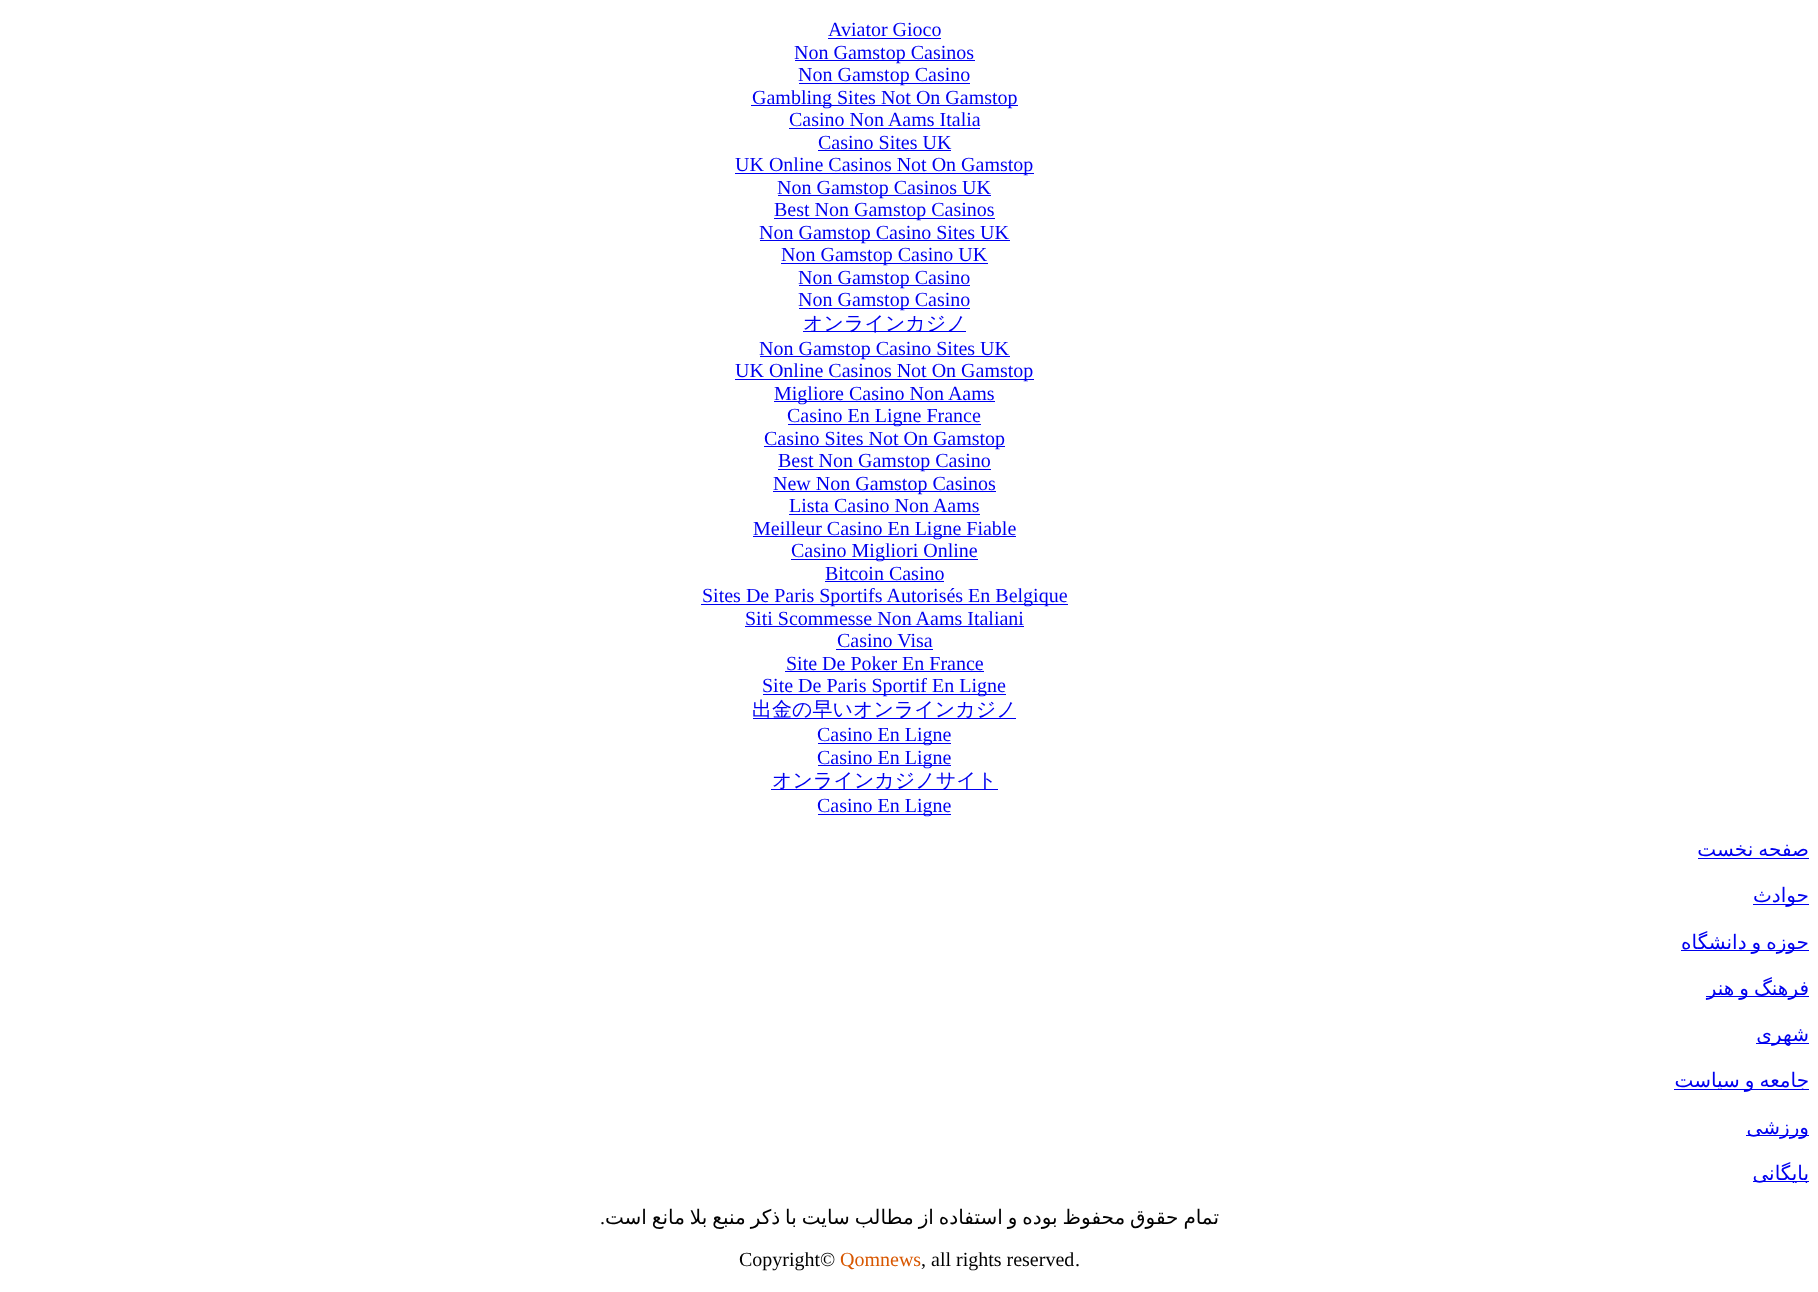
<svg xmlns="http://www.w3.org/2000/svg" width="1818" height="1292">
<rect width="100%" height="100%" fill="#fff"/>
<text x="828" y="36" style="font-family:Liberation Serif;font-size:20px;fill:#00e">Aviator Gioco</text>
<rect x="828" y="38" width="113" height="1" fill="#00e"/>
<rect x="795" y="60" width="180" height="1" fill="#00e"/>
<text x="794" y="59" style="font-family:Liberation Serif;font-size:20px;fill:#00e">Non Gamstop Casinos</text>
<rect x="799" y="83" width="171" height="1" fill="#00e"/>
<text x="798" y="81" style="font-family:Liberation Serif;font-size:20px;fill:#00e">Non Gamstop Casino</text>
<rect x="751" y="105" width="267" height="1" fill="#00e"/>
<text x="752" y="104" style="font-family:Liberation Serif;font-size:20px;fill:#00e">Gambling Sites Not On Gamstop</text>
<text x="789" y="126" style="font-family:Liberation Serif;font-size:20px;fill:#00e">Casino Non Aams Italia</text>
<rect x="789" y="128" width="191" height="1" fill="#00e"/>
<text x="818" y="149" style="font-family:Liberation Serif;font-size:20px;fill:#00e">Casino Sites UK</text>
<rect x="818" y="150" width="133" height="1" fill="#00e"/>
<rect x="735" y="173" width="299" height="1" fill="#00e"/>
<text x="735" y="171" style="font-family:Liberation Serif;font-size:20px;fill:#00e">UK Online Casinos Not On Gamstop</text>
<rect x="778" y="195" width="213" height="1" fill="#00e"/>
<text x="777" y="194" style="font-family:Liberation Serif;font-size:20px;fill:#00e">Non Gamstop Casinos UK</text>
<rect x="774" y="218" width="221" height="1" fill="#00e"/>
<text x="774" y="216" style="font-family:Liberation Serif;font-size:20px;fill:#00e">Best Non Gamstop Casinos</text>
<rect x="760" y="240" width="250" height="1" fill="#00e"/>
<text x="759" y="239" style="font-family:Liberation Serif;font-size:20px;fill:#00e">Non Gamstop Casino Sites UK</text>
<rect x="781" y="263" width="207" height="1" fill="#00e"/>
<text x="781" y="261" style="font-family:Liberation Serif;font-size:20px;fill:#00e">Non Gamstop Casino UK</text>
<rect x="799" y="285" width="171" height="1" fill="#00e"/>
<text x="798" y="284" style="font-family:Liberation Serif;font-size:20px;fill:#00e">Non Gamstop Casino</text>
<rect x="799" y="308" width="171" height="1" fill="#00e"/>
<text x="798" y="306" style="font-family:Liberation Serif;font-size:20px;fill:#00e">Non Gamstop Casino</text>
<rect x="803" y="331" width="163" height="1" fill="#00e"/>
<text x="803" y="330" style="font-family:WenQuanYi Zen Hei;font-size:20px;font-weight:500;fill:#00e">オンラインカジノ</text>
<rect x="760" y="356" width="250" height="1" fill="#00e"/>
<text x="759" y="355" style="font-family:Liberation Serif;font-size:20px;fill:#00e">Non Gamstop Casino Sites UK</text>
<rect x="735" y="379" width="299" height="1" fill="#00e"/>
<text x="735" y="377" style="font-family:Liberation Serif;font-size:20px;fill:#00e">UK Online Casinos Not On Gamstop</text>
<rect x="774" y="401" width="221" height="1" fill="#00e"/>
<text x="774" y="400" style="font-family:Liberation Serif;font-size:20px;fill:#00e">Migliore Casino Non Aams</text>
<rect x="788" y="424" width="193" height="1" fill="#00e"/>
<text x="787" y="422" style="font-family:Liberation Serif;font-size:20px;fill:#00e">Casino En Ligne France</text>
<rect x="764" y="446" width="241" height="1" fill="#00e"/>
<text x="764" y="445" style="font-family:Liberation Serif;font-size:20px;fill:#00e">Casino Sites Not On Gamstop</text>
<rect x="778" y="469" width="213" height="1" fill="#00e"/>
<text x="778" y="467" style="font-family:Liberation Serif;font-size:20px;fill:#00e">Best Non Gamstop Casino</text>
<rect x="773" y="491" width="223" height="1" fill="#00e"/>
<text x="773" y="490" style="font-family:Liberation Serif;font-size:20px;fill:#00e">New Non Gamstop Casinos</text>
<text x="789" y="512" style="font-family:Liberation Serif;font-size:20px;fill:#00e">Lista Casino Non Aams</text>
<rect x="789" y="514" width="191" height="1" fill="#00e"/>
<rect x="753" y="536" width="263" height="1" fill="#00e"/>
<text x="753" y="535" style="font-family:Liberation Serif;font-size:20px;fill:#00e">Meilleur Casino En Ligne Fiable</text>
<rect x="791" y="559" width="187" height="1" fill="#00e"/>
<text x="791" y="557" style="font-family:Liberation Serif;font-size:20px;fill:#00e">Casino Migliori Online</text>
<text x="825" y="580" style="font-family:Liberation Serif;font-size:20px;fill:#00e">Bitcoin Casino</text>
<rect x="825" y="581" width="119" height="1" fill="#00e"/>
<rect x="701" y="604" width="367" height="1" fill="#00e"/>
<text x="702" y="602" style="font-family:Liberation Serif;font-size:20px;fill:#00e">Sites De Paris Sportifs Autorisés En Belgique</text>
<text x="745" y="625" style="font-family:Liberation Serif;font-size:20px;fill:#00e">Siti Scommesse Non Aams Italiani</text>
<rect x="745" y="626" width="279" height="1" fill="#00e"/>
<text x="837" y="647" style="font-family:Liberation Serif;font-size:20px;fill:#00e">Casino Visa</text>
<rect x="836" y="649" width="97" height="1" fill="#00e"/>
<text x="786" y="670" style="font-family:Liberation Serif;font-size:20px;fill:#00e">Site De Poker En France</text>
<rect x="785" y="671" width="199" height="1" fill="#00e"/>
<rect x="763" y="694" width="243" height="1" fill="#00e"/>
<text x="762" y="692" style="font-family:Liberation Serif;font-size:20px;fill:#00e">Site De Paris Sportif En Ligne</text>
<rect x="753" y="718" width="263" height="1" fill="#00e"/>
<text x="752" y="716" style="font-family:WenQuanYi Zen Hei;font-size:20px;font-weight:500;fill:#00e">出金の早いオンラインカジノ</text>
<rect x="818" y="743" width="133" height="1" fill="#00e"/>
<text x="817" y="741" style="font-family:Liberation Serif;font-size:20px;fill:#00e">Casino En Ligne</text>
<rect x="818" y="765" width="133" height="1" fill="#00e"/>
<text x="817" y="764" style="font-family:Liberation Serif;font-size:20px;fill:#00e">Casino En Ligne</text>
<rect x="771" y="789" width="227" height="1" fill="#00e"/>
<text x="772" y="787" style="font-family:WenQuanYi Zen Hei;font-size:20px;font-weight:500;fill:#00e">オンラインカジノサイト</text>
<rect x="818" y="814" width="133" height="1" fill="#00e"/>
<text x="817" y="812" style="font-family:Liberation Serif;font-size:20px;fill:#00e">Casino En Ligne</text>
<text x="1809" y="856" word-spacing="-1.4" style="font-family:DejaVu Sans;font-size:20px;direction:rtl;fill:#00e">صفحه نخست</text>
<rect x="1698" y="858" width="111" height="1" fill="#00e"/>
<rect x="1753" y="904" width="56" height="1" fill="#00e"/>
<text x="1809" y="902" style="font-family:DejaVu Sans;font-size:20px;direction:rtl;fill:#00e">حوادث</text>
<rect x="1681" y="950" width="128" height="1" fill="#00e"/>
<text x="1809" y="949" word-spacing="-1.4" style="font-family:DejaVu Sans;font-size:20px;direction:rtl;fill:#00e">حوزه و دانشگاه</text>
<rect x="1706" y="996" width="103" height="1" fill="#00e"/>
<text x="1809" y="995" word-spacing="-1.4" style="font-family:DejaVu Sans;font-size:20px;direction:rtl;fill:#00e">فرهنگ و هنر</text>
<rect x="1756" y="1043" width="53" height="1" fill="#00e"/>
<text x="1809" y="1041" style="font-family:DejaVu Sans;font-size:20px;direction:rtl;fill:#00e">شهری</text>
<rect x="1674" y="1089" width="135" height="1" fill="#00e"/>
<text x="1809" y="1087" word-spacing="-1.4" style="font-family:DejaVu Sans;font-size:20px;direction:rtl;fill:#00e">جامعه و سیاست</text>
<rect x="1746" y="1135" width="63" height="1" fill="#00e"/>
<text x="1809" y="1134" style="font-family:DejaVu Sans;font-size:20px;direction:rtl;fill:#00e">ورزشی</text>
<rect x="1753" y="1181" width="56" height="1" fill="#00e"/>
<text x="1809" y="1180" style="font-family:DejaVu Sans;font-size:20px;direction:rtl;fill:#00e">بایگانی</text>
<text x="605" y="1224" style="font-family:Liberation Serif;font-size:20px;direction:rtl;fill:#000">.</text>
<text x="1219" y="1224" word-spacing="-1.4" style="font-family:DejaVu Sans;font-size:20px;direction:rtl;fill:#000">تمام حقوق محفوظ بوده و استفاده از مطالب سایت با ذکر منبع بلا مانع است</text>
<text x="739" y="1266" style="font-family:Liberation Serif;font-size:20px;fill:#000">Copyright©</text>
<text x="840" y="1266" style="font-family:Liberation Serif;font-size:20px;fill:#d85701">Qomnews</text>
<text x="921" y="1266" style="font-family:Liberation Serif;font-size:20px;fill:#000">, all rights reserved</text>
<text x="1075" y="1266" style="font-family:Liberation Serif;font-size:20px;fill:#000">.</text>
</svg>
